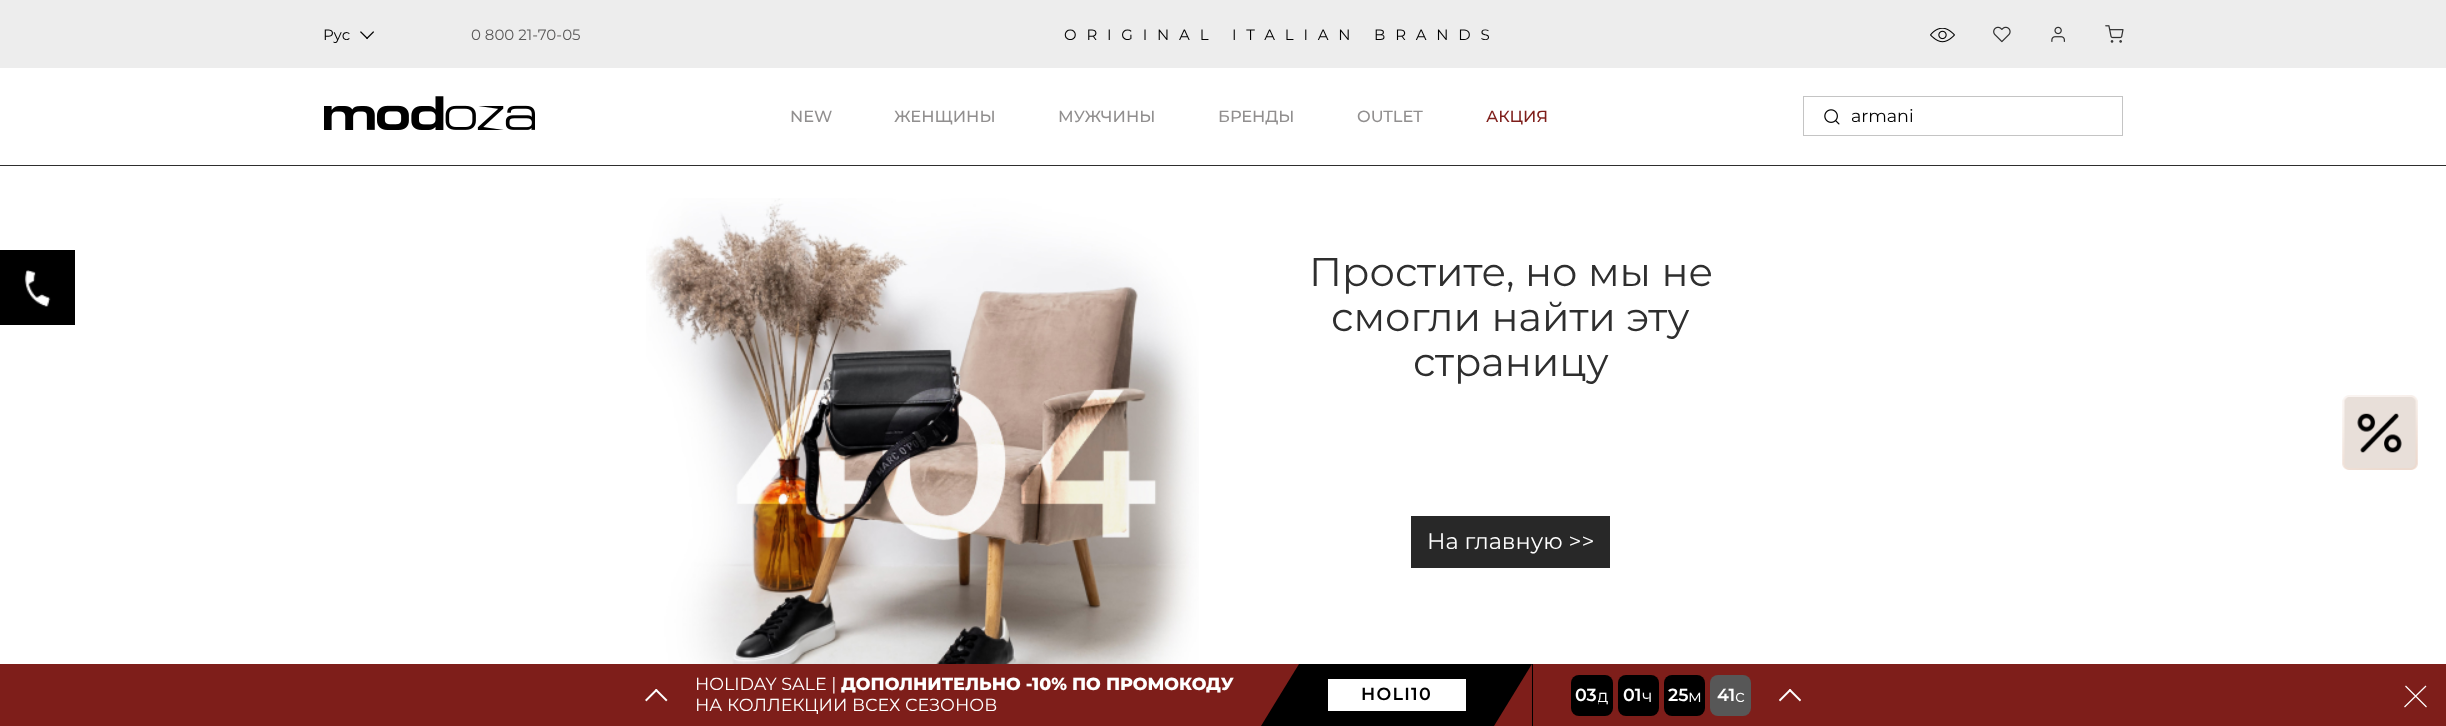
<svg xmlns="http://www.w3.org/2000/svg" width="2446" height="726">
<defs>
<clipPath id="clip1"><rect x="1598" y="686" width="11" height="22"/></clipPath>
</defs>
<rect width="100%" height="100%" fill="#fff"/>
<rect y="165" width="2446" height="1" fill="#2e2e2e"/>
<rect width="2446" height="68" fill="#ededed"/>
<text x="323" y="40" style="font-family:Montserrat;font-size:15px;fill:#000">Рус</text>
<image x="360" y="31" width="14" height="9" href="media/1.png"/>
<text x="471" y="40" style="font-family:Montserrat;font-size:15px;fill:#5b5a5a">0 800 21-70-05</text>
<text x="1064" y="40" style="font-family:Montserrat;font-size:15px;letter-spacing:9.8px;fill:#000">ORIGINAL ITALIAN BRANDS</text>
<image x="1930" y="28" width="25" height="15" href="media/2.png"/>
<image x="1993" y="26" width="18" height="17" href="media/3.png"/>
<image x="2051" y="26" width="14" height="16" href="media/4.png"/>
<image x="2105" y="25" width="19" height="18" href="media/5.png"/>
<image x="324" y="96" width="211" height="34" href="media/6.png"/>
<text x="790" y="122" style="font-family:Montserrat;font-size:16.25px;font-weight:500;fill:#918f8f">NEW</text>
<text x="894" y="122" style="font-family:Montserrat;font-size:16.25px;font-weight:500;fill:#918f8f">ЖЕНЩИНЫ</text>
<text x="1058" y="122" style="font-family:Montserrat;font-size:16.25px;font-weight:500;fill:#918f8f">МУЖЧИНЫ</text>
<text x="1218" y="122" style="font-family:Montserrat;font-size:16.25px;font-weight:500;fill:#918f8f">БРЕНДЫ</text>
<text x="1357" y="122" style="font-family:Montserrat;font-size:16.25px;font-weight:500;fill:#918f8f">OUTLET</text>
<text x="1486" y="122" style="font-family:Montserrat;font-size:16.25px;font-weight:500;fill:#7e1e1a">АКЦИЯ</text>
<rect x="1803.5" y="96.5" width="319" height="39" fill="none" stroke="#c4c4c4"/>
<image x="1824" y="109" width="16" height="16" href="media/7.png"/>
<text x="1851" y="122" style="font-family:Montserrat;font-size:17.5px;fill:#000">armani</text>
<rect y="250" width="75" height="75" fill="#000"/>
<image x="24" y="270" width="27" height="37" href="media/8.png"/>
<image x="646" y="198" width="553" height="466" href="media/9.png"/>
<text x="1309" y="286" style="font-family:Montserrat;font-size:40px;fill:#2e2e2e">Простите, но мы не</text>
<text x="1331" y="331" style="font-family:Montserrat;font-size:40px;fill:#2e2e2e">смогли найти эту</text>
<text x="1413" y="376" style="font-family:Montserrat;font-size:40px;fill:#2e2e2e">страницу</text>
<rect x="1411" y="516" width="199" height="52" fill="#282828"/>
<text x="1427" y="549" style="font-family:Montserrat;font-size:22.5px;fill:#fff">На главную &gt;&gt;</text>
<image x="2342" y="395" width="76" height="75" href="media/10.png"/>
<image x="2342" y="400" width="76" height="69" href="media/11.png"/>
<rect y="664" width="2446" height="62" fill="#7e1e1a"/>
<image x="645" y="689" width="23" height="13" href="media/12.png"/>
<text x="695" y="690" style="font-family:Montserrat;font-size:17.5px;fill:#fff">HOLIDAY SALE |</text>
<text x="841" y="690" style="font-family:Montserrat;font-size:17.5px;font-weight:800;fill:#fff">ДОПОЛНИТЕЛЬНО -10% ПО ПРОМОКОДУ</text>
<text x="695" y="711" style="font-family:Montserrat;font-size:17.5px;fill:#fff">НА КОЛЛЕКЦИИ ВСЕХ СЕЗОНОВ</text>
<rect x="1261" y="664" width="272" height="62" fill="#000"/>
<path d="M1261 664h38l-38 62z" fill="#7e1e1a"/>
<rect x="1328" y="679" width="138" height="32" fill="#fff"/>
<text x="1361" y="700" style="font-family:Montserrat;font-size:17.5px;font-weight:600;letter-spacing:1.25px;fill:#000">HOLI10</text>
<path d="M1532 726h-38l38-62z" fill="#7e1e1a"/>
<rect x="1571" y="675" width="42" height="41" rx="8" fill="#000"/>
<text x="1575" y="701" style="font-family:Montserrat;font-size:17.5px;font-weight:600;fill:#fff">03</text>
<g clip-path="url(#clip1)">
<text x="1597" y="702" style="font-family:Montserrat;font-size:17.5px;fill:#fff">д</text>
</g>
<rect x="1618" y="675" width="41" height="41" rx="8" fill="#000"/>
<text x="1623" y="701" style="font-family:Montserrat;font-size:17.5px;font-weight:600;fill:#fff">01</text>
<text x="1642" y="702" style="font-family:Montserrat;font-size:17.5px;fill:#fff">ч</text>
<rect x="1664" y="675" width="41" height="41" rx="8" fill="#000"/>
<text x="1668" y="701" style="font-family:Montserrat;font-size:17.5px;font-weight:600;fill:#fff">25</text>
<text x="1688" y="702" style="font-family:Montserrat;font-size:17.5px;fill:#fff">м</text>
<rect x="1710" y="675" width="41" height="41" rx="8" fill="#575757"/>
<text x="1717" y="701" style="font-family:Montserrat;font-size:17.5px;font-weight:600;fill:#fff">41</text>
<text x="1735" y="702" style="font-family:Montserrat;font-size:17.5px;fill:#fff">с</text>
<image x="1779" y="689" width="22" height="13" href="media/13.png"/>
<path d="M2404.5 707l21.5-21m-20.5 0l21 21" fill="none" stroke="#fff" stroke-width="1.2"/>
</svg>
